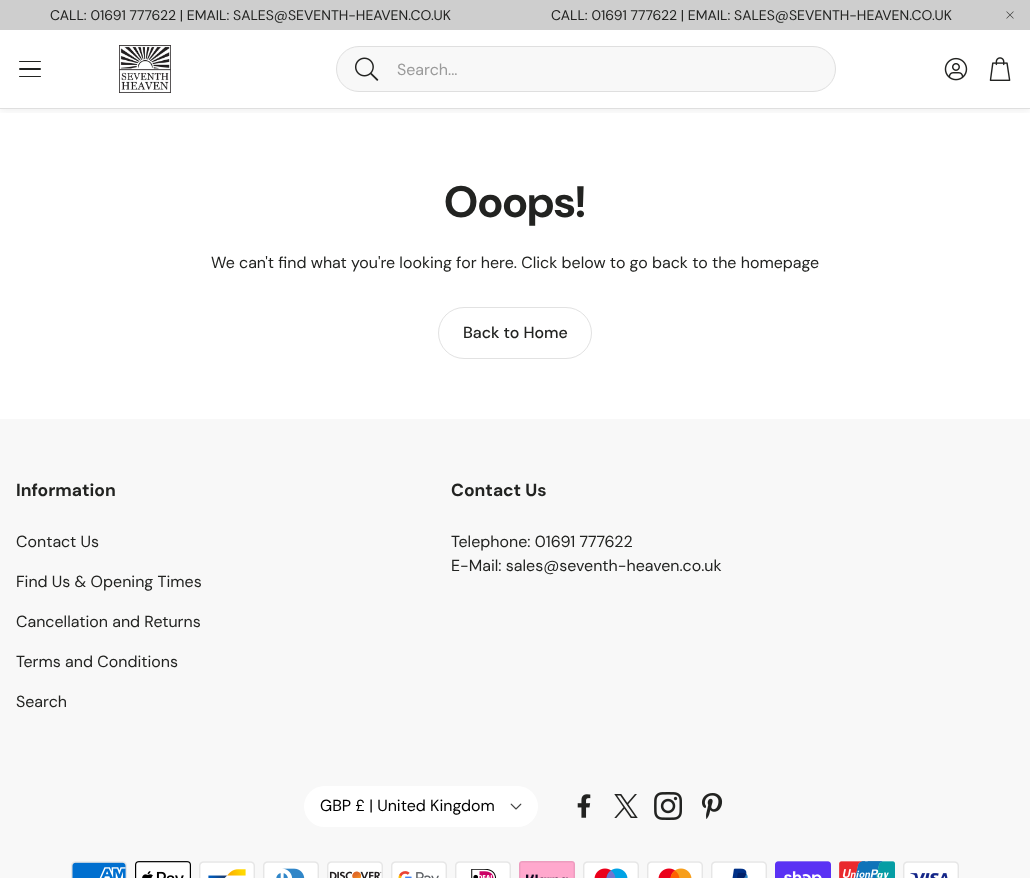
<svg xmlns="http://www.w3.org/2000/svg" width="1030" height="878">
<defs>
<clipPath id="clip1"><rect x="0" y="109" width="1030" height="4"/></clipPath>
</defs>
<rect width="100%" height="100%" fill="#fff"/>
<rect width="1030" height="30" fill="#cecece"/>
<text x="50" y="20" style="font-family:'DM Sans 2';font-size:14px;fill:#222321">CALL: 01691 777622 | EMAIL: SALES@SEVENTH-HEAVEN.CO.UK</text>
<text x="551" y="20" style="font-family:'DM Sans 2';font-size:14px;fill:#222321">CALL: 01691 777622 | EMAIL: SALES@SEVENTH-HEAVEN.CO.UK</text>
<image x="1006" y="11" width="8" height="8" href="media/1.png"/>
<g clip-path="url(#clip1)">
<rect y="33" width="1030" height="79" fill="#0000000d" filter="blur(3px)"/>
</g>
<rect y="108" width="1030" height="1" fill="#dfdfdf"/>
<rect x="19" y="61" width="22" height="1" rx="0.5" fill="#222321"/>
<rect x="19" y="68" width="22" height="2" rx="1" fill="#222321"/>
<rect x="19" y="76" width="22" height="1" rx="0.5" fill="#222321"/>
<image x="119" y="45" width="52" height="48" href="media/2.png"/>
<rect x="336.5" y="46.5" width="499" height="45" rx="22.5" fill="#f8f8f8" stroke="#dfdfdf"/>
<image x="355" y="57" width="24" height="24" href="media/3.png"/>
<text x="397" y="75" style="font-family:DM Sans;font-size:16px;fill:#9a9a9a">Search...</text>
<image x="944" y="57" width="24" height="24" href="media/4.png"/>
<image x="989" y="57" width="22" height="24" href="media/5.png"/>
<text x="444" y="217" style="font-family:DM Sans;font-size:44px;font-weight:bold;fill:#222321">Ooops!</text>
<text x="211" y="268" style="font-family:DM Sans;font-size:16px;fill:#222321">We can't find what you're looking for here. Click below to go back to the homepage</text>
<rect x="438.5" y="307.5" width="153" height="51" rx="25.5" fill="none" stroke="#e2e2e2"/>
<text x="463" y="338" style="font-family:DM Sans;font-size:16px;font-weight:500;fill:#222321">Back to Home</text>
<rect y="419" width="1030" height="459" fill="#f8f8f8"/>
<text x="16" y="496" style="font-family:'DM Sans 2';font-size:17.5px;font-weight:bold;fill:#222321">Information</text>
<text x="16" y="547" style="font-family:DM Sans;font-size:16px;fill:#222321">Contact Us</text>
<text x="16" y="587" style="font-family:DM Sans;font-size:16px;fill:#222321">Find Us &amp; Opening Times</text>
<text x="16" y="627" style="font-family:DM Sans;font-size:16px;fill:#222321">Cancellation and Returns</text>
<text x="16" y="667" style="font-family:DM Sans;font-size:16px;fill:#222321">Terms and Conditions</text>
<text x="16" y="707" style="font-family:DM Sans;font-size:16px;fill:#222321">Search</text>
<text x="451" y="496" style="font-family:'DM Sans 2';font-size:17.5px;font-weight:bold;fill:#222321">Contact Us</text>
<text x="451" y="547" style="font-family:DM Sans;font-size:16px;fill:#222321">Telephone: 01691 777622</text>
<text x="451" y="571" style="font-family:DM Sans;font-size:16px;fill:#222321">E-Mail: sales@seventh-heaven.co.uk</text>
<rect x="304" y="786" width="234" height="41" rx="20.5" fill="#fff"/>
<text x="320" y="811" style="font-family:DM Sans;font-size:16px;fill:#000">GBP £ | United Kingdom</text>
<image x="510" y="803" width="12" height="7" href="media/6.png"/>
<image x="577" y="794" width="14" height="24" href="media/7.png"/>
<image x="614" y="794" width="24" height="24" href="media/8.png"/>
<image x="654" y="792" width="28" height="28" href="media/9.png"/>
<image x="701" y="793" width="22" height="26" href="media/10.png"/>
<image x="71" y="861" width="56" height="17" href="media/11.png"/>
<image x="135" y="861" width="56" height="17" href="media/12.png"/>
<image x="199" y="861" width="56" height="17" href="media/13.png"/>
<image x="263" y="861" width="56" height="17" href="media/14.png"/>
<image x="327" y="861" width="56" height="17" href="media/15.png"/>
<image x="391" y="861" width="56" height="17" href="media/16.png"/>
<image x="455" y="861" width="56" height="17" href="media/17.png"/>
<image x="519" y="861" width="56" height="17" href="media/18.png"/>
<image x="583" y="861" width="56" height="17" href="media/19.png"/>
<image x="647" y="861" width="56" height="17" href="media/20.png"/>
<image x="711" y="861" width="56" height="17" href="media/21.png"/>
<image x="775" y="861" width="56" height="17" href="media/22.png"/>
<image x="839" y="861" width="56" height="17" href="media/23.png"/>
<image x="903" y="861" width="56" height="17" href="media/24.png"/>
</svg>
